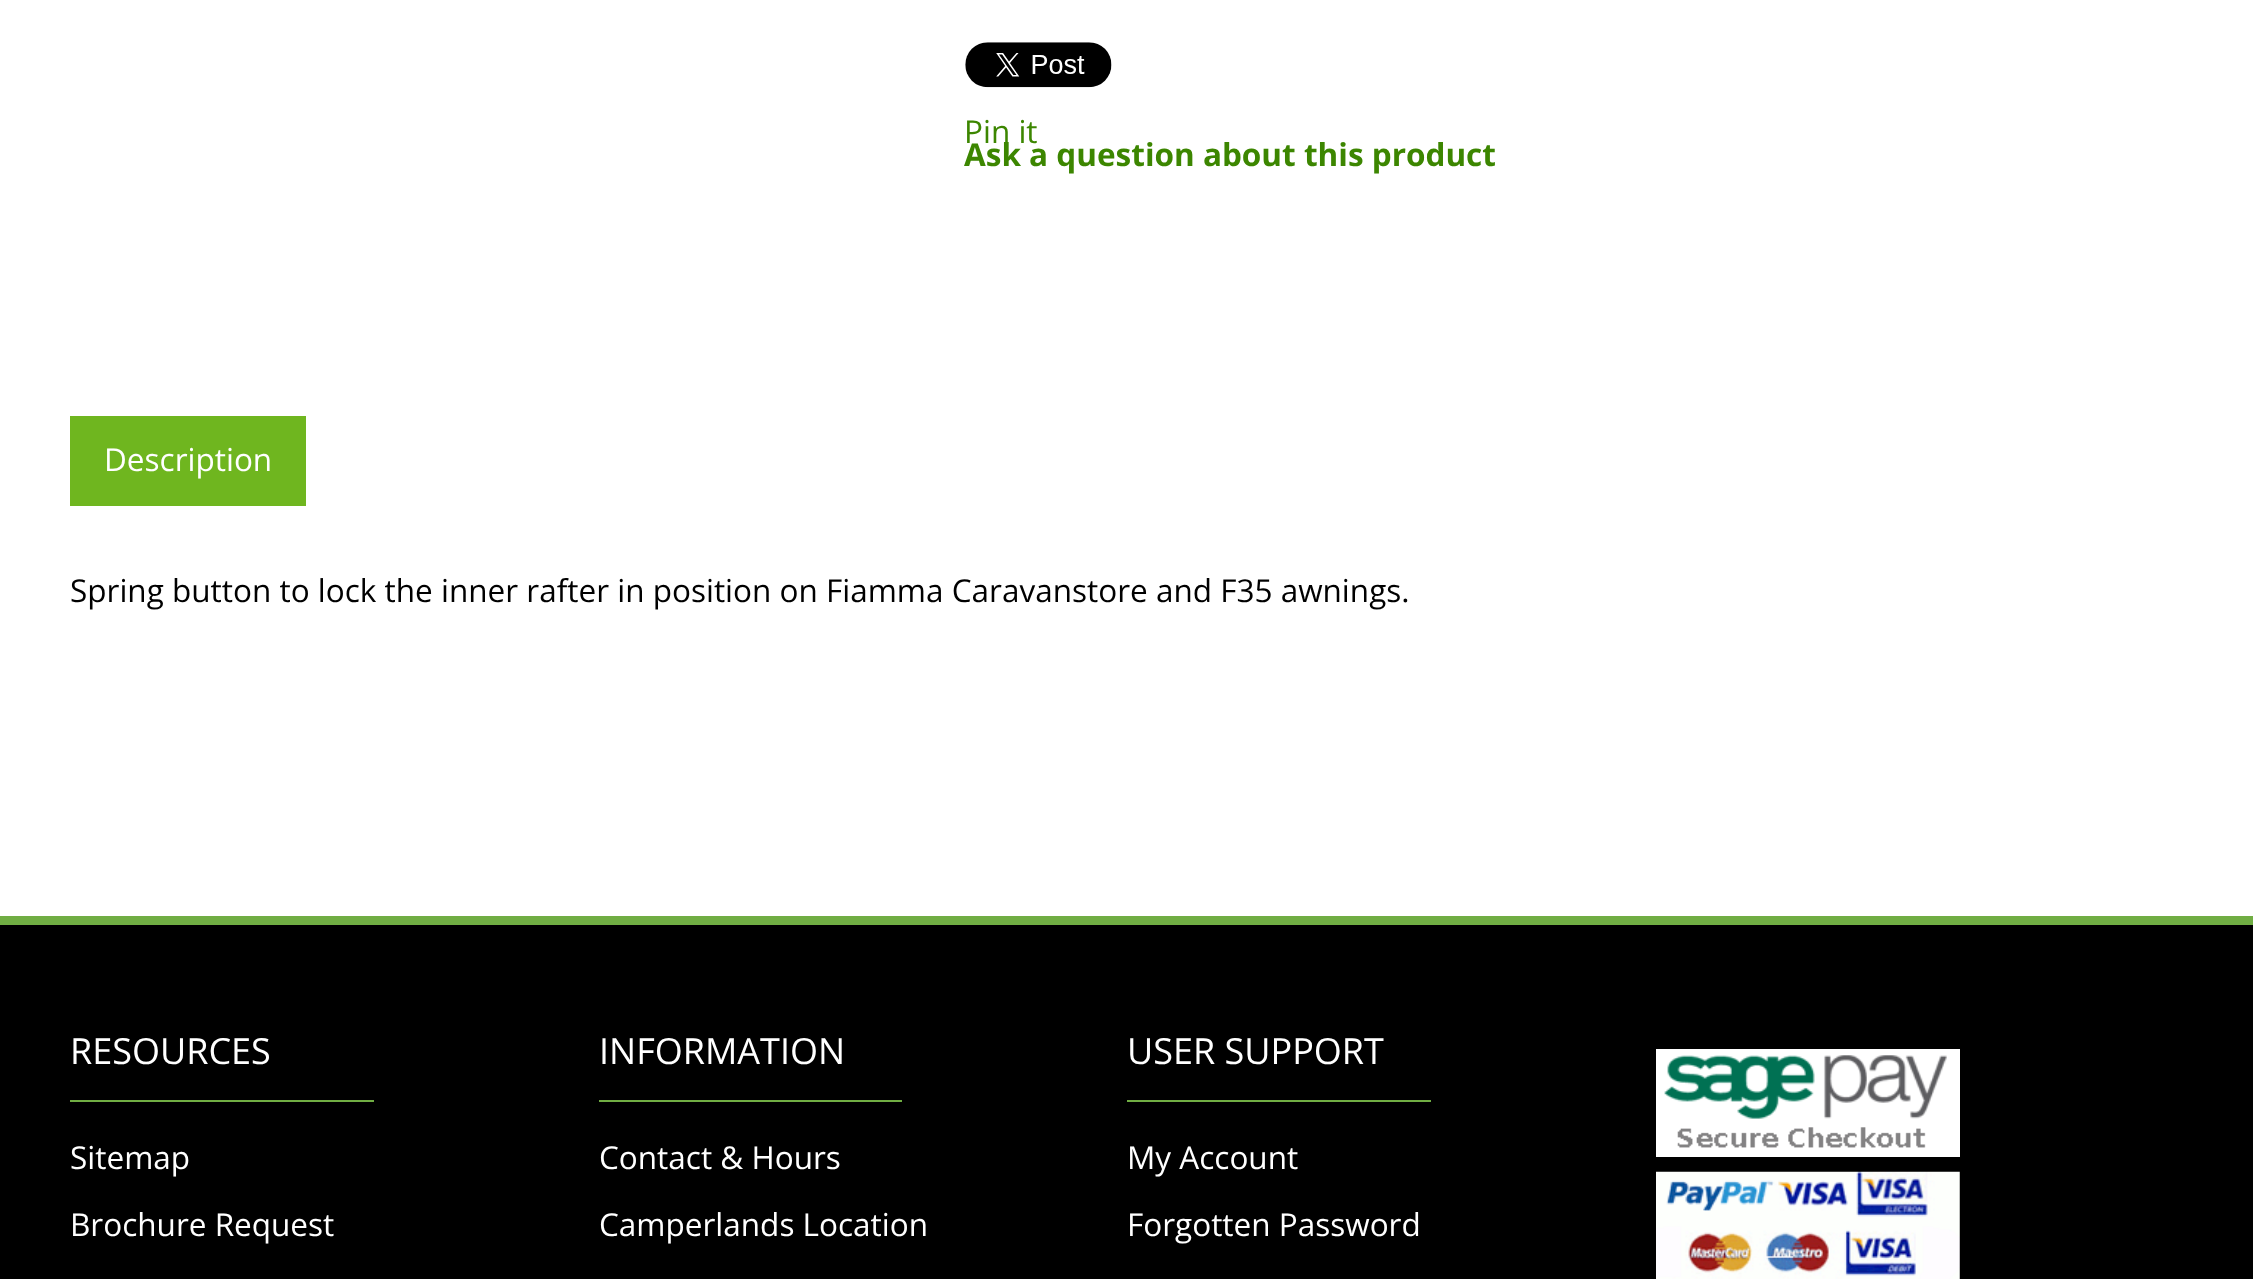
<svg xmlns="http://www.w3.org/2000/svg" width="2253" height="1279">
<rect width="100%" height="100%" fill="#fff"/>
<image x="965" y="42" width="147" height="46" href="media/1.png"/>
<text x="964" y="143" style="font-family:Open Sans;font-size:31.5px;fill:#3c8600">Pin it</text>
<text x="964" y="166" style="font-family:Open Sans;font-size:31.5px;font-weight:bold;fill:#3c8600">Ask a question about this product</text>
<rect x="70" y="416" width="236" height="90" fill="#6fb61f"/>
<text x="104" y="471" style="font-family:Open Sans;font-size:31.5px;fill:#fff">Description</text>
<text x="70" y="602" style="font-family:Open Sans;font-size:31.5px;fill:#000">Spring button to lock the inner rafter in position on Fiamma Caravanstore and F35 awnings.</text>
<rect y="925" width="2253" height="354" fill="#000"/>
<rect y="916" width="2253" height="9" fill="#70ad43"/>
<rect x="70" y="1100" width="304" height="2" fill="#70ad43"/>
<text x="70" y="1064" style="font-family:Open Sans;font-size:36px;fill:#fff">RESOURCES</text>
<text x="70" y="1169" style="font-family:Open Sans;font-size:31.5px;fill:#fff">Sitemap</text>
<text x="70" y="1236" style="font-family:Open Sans;font-size:31.5px;fill:#fff">Brochure Request</text>
<rect x="599" y="1100" width="303" height="2" fill="#70ad43"/>
<text x="599" y="1064" style="font-family:Open Sans;font-size:36px;fill:#fff">INFORMATION</text>
<text x="599" y="1169" style="font-family:Open Sans;font-size:31.5px;fill:#fff">Contact &amp; Hours</text>
<text x="599" y="1236" style="font-family:Open Sans;font-size:31.5px;fill:#fff">Camperlands Location</text>
<rect x="1127" y="1100" width="304" height="2" fill="#70ad43"/>
<text x="1127" y="1064" style="font-family:Open Sans;font-size:36px;fill:#fff">USER SUPPORT</text>
<text x="1127" y="1169" style="font-family:Open Sans;font-size:31.5px;fill:#fff">My Account</text>
<text x="1127" y="1236" style="font-family:Open Sans;font-size:31.5px;fill:#fff">Forgotten Password</text>
<rect x="1656" y="1049" width="304" height="108" fill="#fff"/>
<image x="1664" y="1055" width="283" height="93" href="media/2.png"/>
<image x="1656" y="1171" width="304" height="108" href="media/3.png"/>
</svg>
